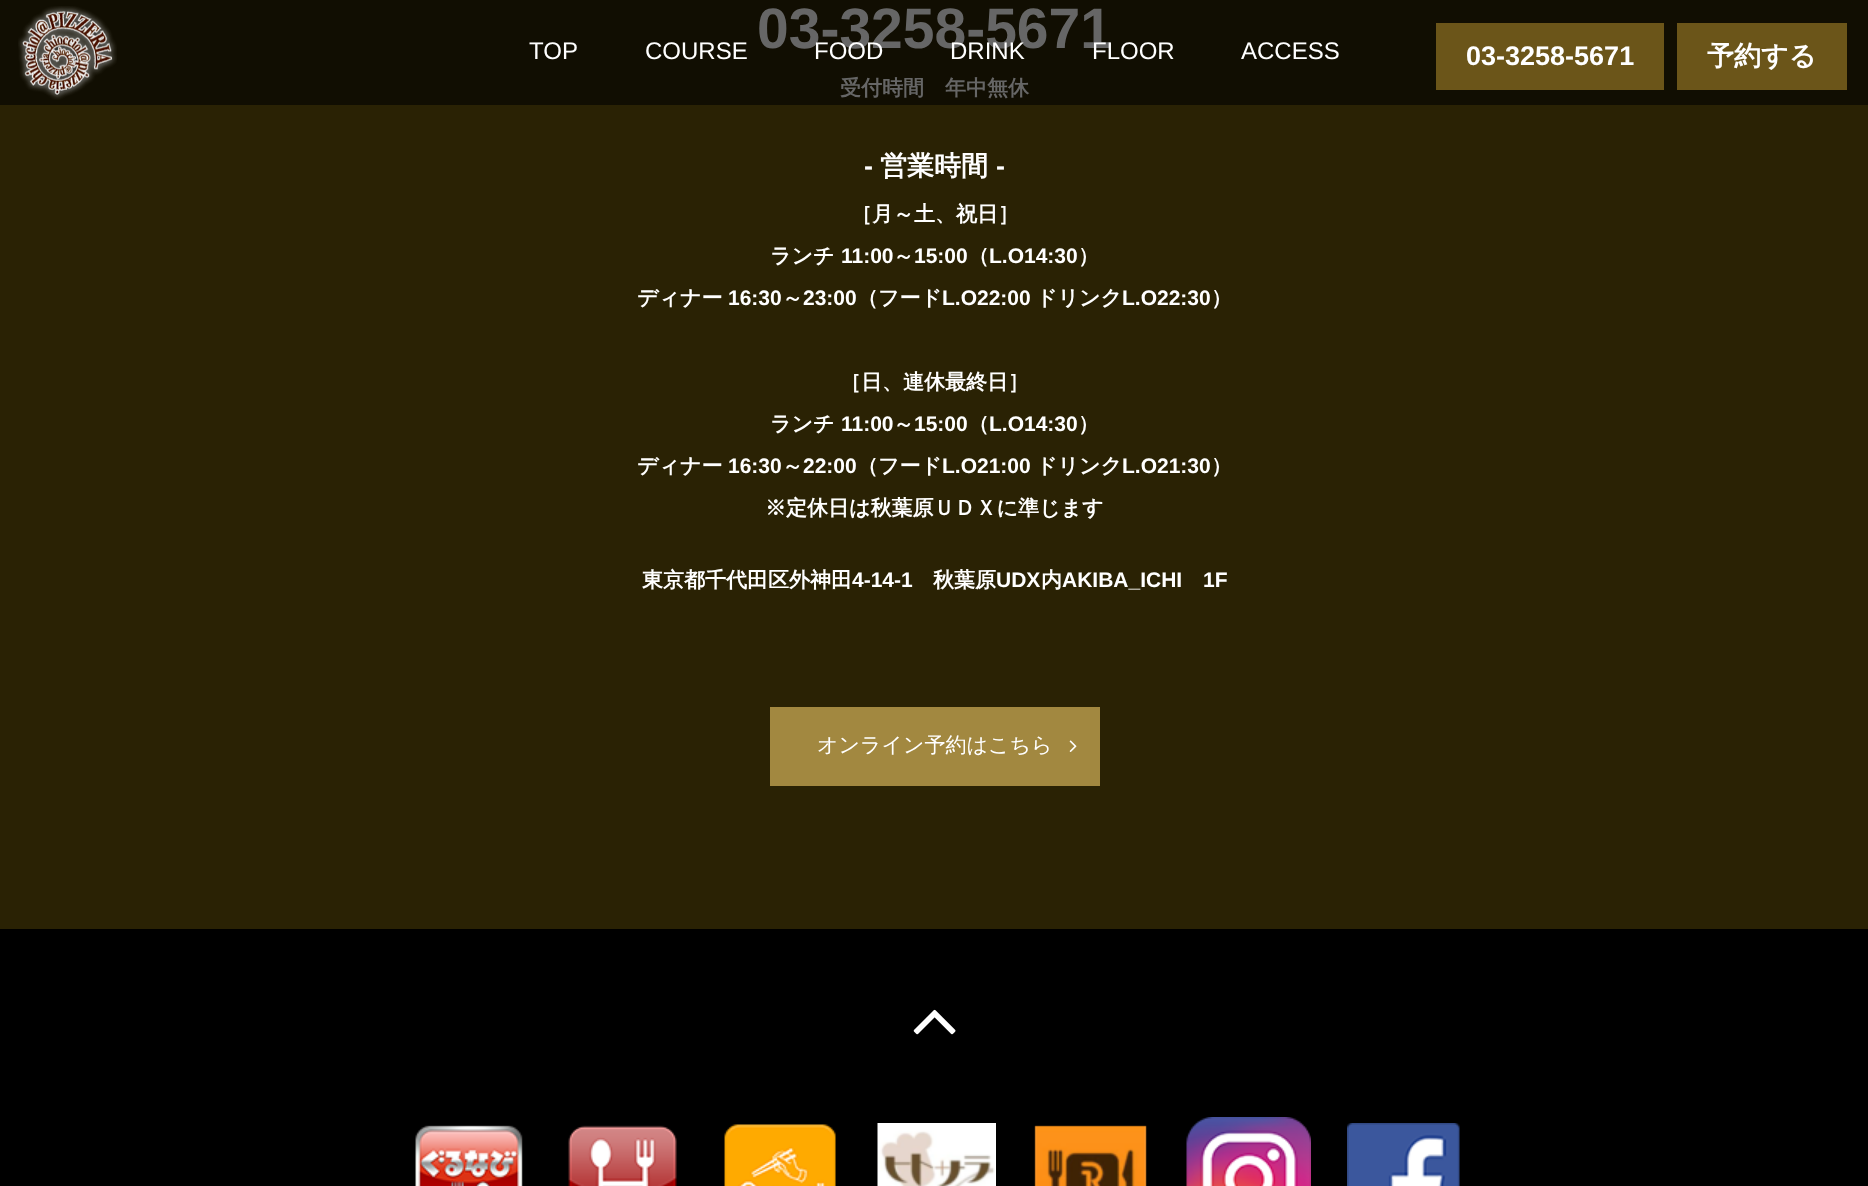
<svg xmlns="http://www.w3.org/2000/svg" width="1868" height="1186">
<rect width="100%" height="100%" fill="#000"/>
<rect y="105" width="1868" height="824" fill="#2a2204"/>
<rect width="1868" height="105" fill="#110e02"/>
<text x="757" y="48" style="font-family:Liberation Sans;font-size:57px;font-weight:bold;fill:#666">03-3258-5671</text>
<text x="840" y="95" style="font-family:WenQuanYi Zen Hei;font-size:21px;font-weight:bold;fill:#666">受付時間　年中無休</text>
<text x="864" y="175" style="font-family:Liberation Sans;font-size:27px;font-weight:bold;fill:#fff">-</text>
<text x="880" y="175" style="font-family:WenQuanYi Zen Hei;font-size:27px;font-weight:bold;fill:#fff">営業時間</text>
<text x="996" y="175" style="font-family:Liberation Sans;font-size:27px;font-weight:bold;fill:#fff">-</text>
<text x="851" y="221" style="font-family:WenQuanYi Zen Hei;font-size:21px;font-weight:bold;fill:#fff">［月～土、祝日］</text>
<text x="770" y="263" style="font-family:WenQuanYi Zen Hei;font-size:21px;font-weight:bold;fill:#fff">ランチ</text>
<text x="841" y="263" style="font-family:Liberation Sans;font-size:21px;font-weight:bold;fill:#fff">11:00</text>
<text x="893" y="263" style="font-family:WenQuanYi Zen Hei;font-size:21px;font-weight:bold;fill:#fff">～</text>
<text x="914" y="263" style="font-family:Liberation Sans;font-size:21px;font-weight:bold;fill:#fff">15:00</text>
<text x="968" y="263" style="font-family:WenQuanYi Zen Hei;font-size:21px;font-weight:bold;fill:#fff">（</text>
<text x="989" y="263" style="font-family:Liberation Sans;font-size:21px;font-weight:bold;fill:#fff">L.O14:30</text>
<text x="1078" y="263" style="font-family:WenQuanYi Zen Hei;font-size:21px;font-weight:bold;fill:#fff">）</text>
<text x="637" y="305" style="font-family:WenQuanYi Zen Hei;font-size:21px;font-weight:bold;fill:#fff">ディナー</text>
<text x="728" y="305" style="font-family:Liberation Sans;font-size:21px;font-weight:bold;fill:#fff">16:30</text>
<text x="782" y="305" style="font-family:WenQuanYi Zen Hei;font-size:21px;font-weight:bold;fill:#fff">～</text>
<text x="803" y="305" style="font-family:Liberation Sans;font-size:21px;font-weight:bold;fill:#fff">23:00</text>
<text x="857" y="305" style="font-family:WenQuanYi Zen Hei;font-size:21px;font-weight:bold;fill:#fff">（フード</text>
<text x="942" y="305" style="font-family:Liberation Sans;font-size:21px;font-weight:bold;fill:#fff">L.O22:00</text>
<text x="1036" y="305" style="font-family:WenQuanYi Zen Hei;font-size:21px;font-weight:bold;fill:#fff">ドリンク</text>
<text x="1122" y="305" style="font-family:Liberation Sans;font-size:21px;font-weight:bold;fill:#fff">L.O22:30</text>
<text x="1211" y="305" style="font-family:WenQuanYi Zen Hei;font-size:21px;font-weight:bold;fill:#fff">）</text>
<text x="840" y="389" style="font-family:WenQuanYi Zen Hei;font-size:21px;font-weight:bold;fill:#fff">［日、連休最終日］</text>
<text x="770" y="431" style="font-family:WenQuanYi Zen Hei;font-size:21px;font-weight:bold;fill:#fff">ランチ</text>
<text x="841" y="431" style="font-family:Liberation Sans;font-size:21px;font-weight:bold;fill:#fff">11:00</text>
<text x="893" y="431" style="font-family:WenQuanYi Zen Hei;font-size:21px;font-weight:bold;fill:#fff">～</text>
<text x="914" y="431" style="font-family:Liberation Sans;font-size:21px;font-weight:bold;fill:#fff">15:00</text>
<text x="968" y="431" style="font-family:WenQuanYi Zen Hei;font-size:21px;font-weight:bold;fill:#fff">（</text>
<text x="989" y="431" style="font-family:Liberation Sans;font-size:21px;font-weight:bold;fill:#fff">L.O14:30</text>
<text x="1078" y="431" style="font-family:WenQuanYi Zen Hei;font-size:21px;font-weight:bold;fill:#fff">）</text>
<text x="637" y="473" style="font-family:WenQuanYi Zen Hei;font-size:21px;font-weight:bold;fill:#fff">ディナー</text>
<text x="728" y="473" style="font-family:Liberation Sans;font-size:21px;font-weight:bold;fill:#fff">16:30</text>
<text x="782" y="473" style="font-family:WenQuanYi Zen Hei;font-size:21px;font-weight:bold;fill:#fff">～</text>
<text x="803" y="473" style="font-family:Liberation Sans;font-size:21px;font-weight:bold;fill:#fff">22:00</text>
<text x="857" y="473" style="font-family:WenQuanYi Zen Hei;font-size:21px;font-weight:bold;fill:#fff">（フード</text>
<text x="942" y="473" style="font-family:Liberation Sans;font-size:21px;font-weight:bold;fill:#fff">L.O21:00</text>
<text x="1036" y="473" style="font-family:WenQuanYi Zen Hei;font-size:21px;font-weight:bold;fill:#fff">ドリンク</text>
<text x="1122" y="473" style="font-family:Liberation Sans;font-size:21px;font-weight:bold;fill:#fff">L.O21:30</text>
<text x="1211" y="473" style="font-family:WenQuanYi Zen Hei;font-size:21px;font-weight:bold;fill:#fff">）</text>
<text x="765" y="515" style="font-family:WenQuanYi Zen Hei;font-size:21px;font-weight:bold;fill:#fff">※定休日は秋葉原ＵＤＸに準じます</text>
<text x="642" y="587" style="font-family:WenQuanYi Zen Hei;font-size:21px;font-weight:bold;fill:#fff">東京都千代田区外神田</text>
<text x="852" y="587" style="font-family:Liberation Sans;font-size:21px;font-weight:bold;fill:#fff">4-14-1</text>
<text x="933" y="587" style="font-family:WenQuanYi Zen Hei;font-size:21px;font-weight:bold;fill:#fff">秋葉原</text>
<text x="996" y="587" style="font-family:Liberation Sans;font-size:21px;font-weight:bold;fill:#fff">UDX</text>
<text x="1041" y="587" style="font-family:WenQuanYi Zen Hei;font-size:21px;font-weight:bold;fill:#fff">内</text>
<text x="1062" y="587" style="font-family:Liberation Sans;font-size:21px;font-weight:bold;fill:#fff">AKIBA_ICHI</text>
<text x="1203" y="587" style="font-family:Liberation Sans;font-size:21px;font-weight:bold;fill:#fff">1F</text>
<rect x="770" y="707" width="330" height="79" fill="#a28840"/>
<text x="817" y="752" style="font-family:WenQuanYi Zen Hei;font-size:21px;font-weight:500;fill:#fff">オンライン予約はこちら</text>
<image x="1069" y="740" width="8" height="12" href="media/1.png"/>
<image x="18" y="6" width="99" height="94" href="media/2.png"/>
<text x="529" y="59" style="font-family:Liberation Sans;font-size:24px;fill:#fff">TOP</text>
<text x="645" y="59" style="font-family:Liberation Sans;font-size:24px;fill:#fff">COURSE</text>
<text x="814" y="59" style="font-family:Liberation Sans;font-size:24px;fill:#fff">FOOD</text>
<text x="950" y="59" style="font-family:Liberation Sans;font-size:24px;fill:#fff">DRINK</text>
<text x="1092" y="59" style="font-family:Liberation Sans;font-size:24px;fill:#fff">FLOOR</text>
<text x="1241" y="59" style="font-family:Liberation Sans;font-size:24px;fill:#fff">ACCESS</text>
<rect x="1436" y="23" width="228" height="67" fill="#6b5519"/>
<text x="1466" y="65" style="font-family:Liberation Sans;font-size:27px;font-weight:bold;fill:#fff">03-3258-5671</text>
<rect x="1677" y="23" width="170" height="67" fill="#6b5519"/>
<text x="1707" y="65" style="font-family:WenQuanYi Zen Hei;font-size:27px;font-weight:bold;fill:#fff">予約する</text>
<image x="913" y="1009" width="43" height="26" href="media/3.png"/>
<image x="415" y="1125" width="108" height="61" href="media/4.png"/>
<image x="568" y="1125" width="109" height="61" href="media/5.png"/>
<image x="724" y="1124" width="112" height="62" href="media/6.png"/>
<image x="877" y="1123" width="119" height="63" href="media/7.png"/>
<image x="1034" y="1125" width="113" height="61" href="media/8.png"/>
<image x="1186" y="1117" width="125" height="69" href="media/9.png"/>
<image x="1347" y="1123" width="113" height="63" href="media/10.png"/>
</svg>
